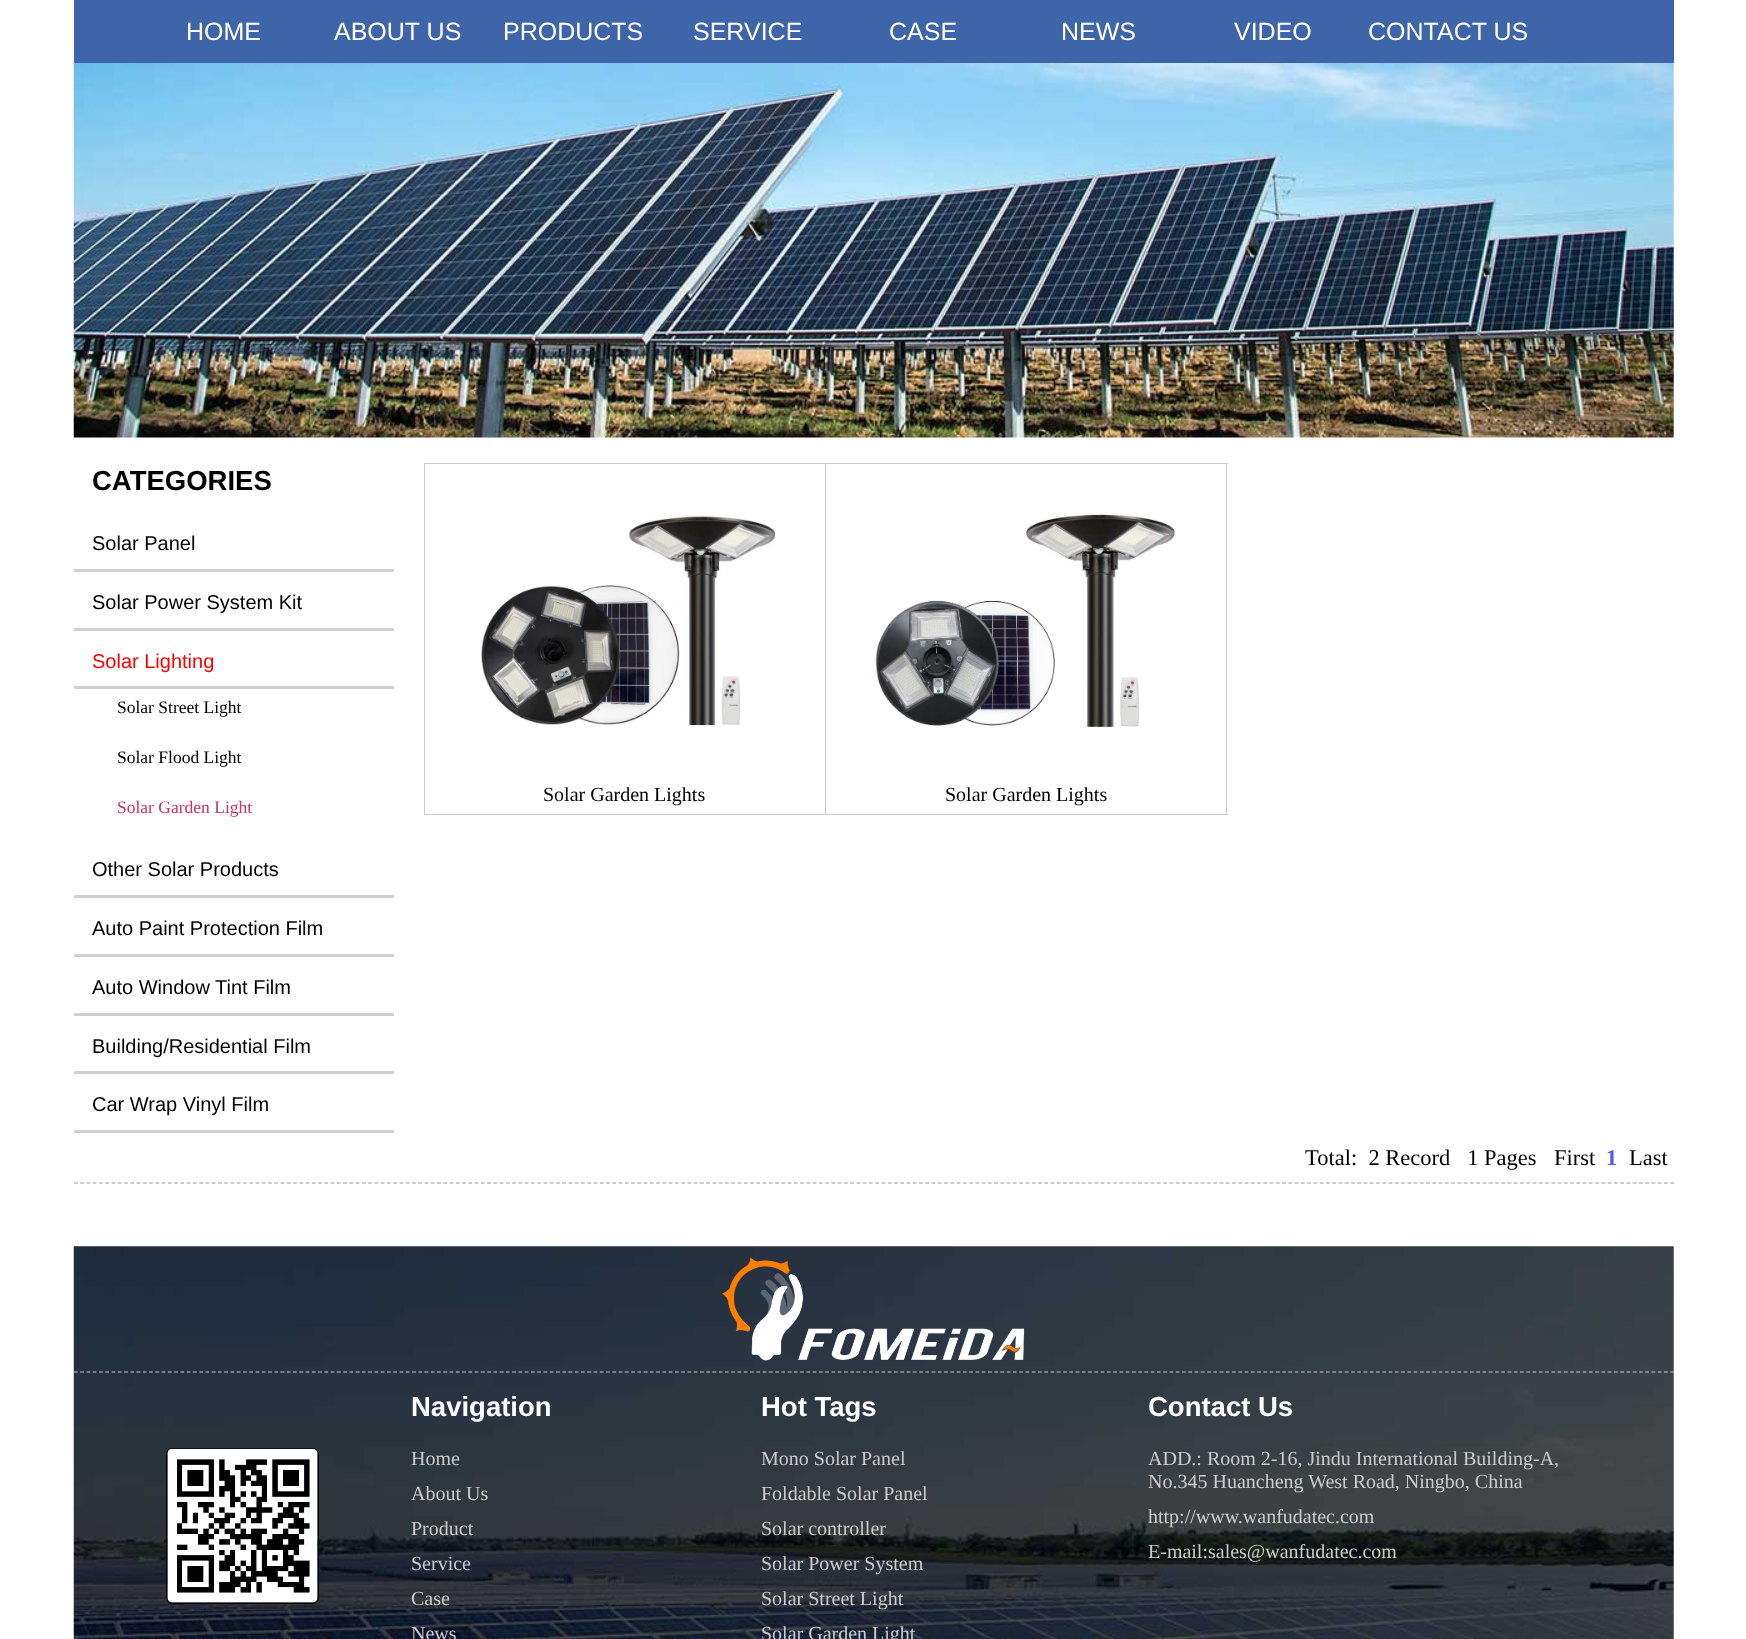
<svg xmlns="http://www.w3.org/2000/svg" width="1746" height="1639">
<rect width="100%" height="100%" fill="#fff"/>
<image x="73" y="62" width="1601" height="376" href="media/1.png"/>
<rect x="74" width="1600" height="63" fill="#3e64a9"/>
<text x="186" y="40" style="font-family:Liberation Sans;font-size:25px;fill:#fff">HOME</text>
<text x="334" y="40" style="font-family:Liberation Sans;font-size:25px;fill:#fff">ABOUT US</text>
<text x="503" y="40" style="font-family:Liberation Sans;font-size:25px;fill:#fff">PRODUCTS</text>
<text x="693" y="40" style="font-family:Liberation Sans;font-size:25px;fill:#fff">SERVICE</text>
<text x="889" y="40" style="font-family:Liberation Sans;font-size:25px;fill:#fff">CASE</text>
<text x="1061" y="40" style="font-family:Liberation Sans;font-size:25px;fill:#fff">NEWS</text>
<text x="1234" y="40" style="font-family:Liberation Sans;font-size:25px;fill:#fff">VIDEO</text>
<text x="1368" y="40" style="font-family:Liberation Sans;font-size:25px;fill:#fff">CONTACT US</text>
<text x="92" y="490" style="font-family:Liberation Sans;font-size:27.5px;font-weight:bold;fill:#000">CATEGORIES</text>
<text x="92" y="550" style="font-family:Liberation Sans;font-size:20px;fill:#000">Solar Panel</text>
<rect x="74" y="569" width="320" height="3" fill="#d0d0d0"/>
<text x="92" y="609" style="font-family:Liberation Sans;font-size:20px;fill:#000">Solar Power System Kit</text>
<rect x="74" y="628" width="320" height="3" fill="#d0d0d0"/>
<text x="92" y="668" style="font-family:Liberation Sans;font-size:20px;fill:#f00">Solar Lighting</text>
<rect x="74" y="686" width="320" height="3" fill="#d0d0d0"/>
<text x="117" y="713" style="font-family:Liberation Serif;font-size:17.5px;fill:#000">Solar Street Light</text>
<text x="117" y="763" style="font-family:Liberation Serif;font-size:17.5px;fill:#000">Solar Flood Light</text>
<text x="117" y="813" style="font-family:Liberation Serif;font-size:17.5px;fill:#c36">Solar Garden Light</text>
<text x="92" y="876" style="font-family:Liberation Sans;font-size:20px;fill:#000">Other Solar Products</text>
<rect x="74" y="895" width="320" height="3" fill="#d0d0d0"/>
<text x="92" y="935" style="font-family:Liberation Sans;font-size:20px;fill:#000">Auto Paint Protection Film</text>
<rect x="74" y="954" width="320" height="3" fill="#d0d0d0"/>
<text x="92" y="994" style="font-family:Liberation Sans;font-size:20px;fill:#000">Auto Window Tint Film</text>
<rect x="74" y="1013" width="320" height="3" fill="#d0d0d0"/>
<text x="92" y="1053" style="font-family:Liberation Sans;font-size:20px;fill:#000">Building/Residential Film</text>
<rect x="74" y="1071" width="320" height="3" fill="#d0d0d0"/>
<text x="92" y="1111" style="font-family:Liberation Sans;font-size:20px;fill:#000">Car Wrap Vinyl Film</text>
<rect x="74" y="1130" width="320" height="3" fill="#d0d0d0"/>
<rect x="424" y="463" width="804" height="1" fill="#ccc"/>
<rect x="424" y="463" width="1" height="352" fill="#ccc"/>
<rect x="825" y="464" width="1" height="351" fill="#ccc"/>
<rect x="425" y="814" width="401" height="1" fill="#ccc"/>
<image x="481" y="515" width="295" height="211" href="media/2.png"/>
<text x="543" y="801" style="font-family:Liberation Serif;font-size:20px;fill:#000">Solar Garden Lights</text>
<rect x="1226" y="464" width="1" height="351" fill="#ccc"/>
<rect x="826" y="814" width="402" height="1" fill="#ccc"/>
<image x="875" y="513" width="301" height="214" href="media/3.png"/>
<text x="945" y="801" style="font-family:Liberation Serif;font-size:20px;fill:#000">Solar Garden Lights</text>
<path d="M74 1183h1600" fill="none" stroke="#999" stroke-width="1.2" stroke-dasharray="3.75 2.51"/>
<text x="1305" y="1165" style="font-family:Liberation Serif;font-size:22.5px;fill:#000" xml:space="preserve">Total:  2 Record   1 Pages</text>
<text x="1554" y="1165" style="font-family:Liberation Serif;font-size:22.5px;fill:#000">First</text>
<text x="1606" y="1165" style="font-family:Liberation Serif;font-size:22.5px;font-weight:bold;fill:#5858e6">1</text>
<text x="1629" y="1165" style="font-family:Liberation Serif;font-size:22.5px;fill:#000">Last</text>
<image x="73" y="1246" width="1601" height="393" href="media/4.png"/>
<image x="722" y="1257" width="303" height="104" href="media/5.png"/>
<path d="M74 1372h1600" fill="none" stroke="#ccc" stroke-width="1.2" stroke-dasharray="3.75 2.51"/>
<rect x="166.5" y="1448.5" width="152" height="155" rx="5.5" fill="none" stroke="#000"/>
<image x="167" y="1448" width="151" height="155" href="media/6.png"/>
<text x="411" y="1416" style="font-family:Liberation Sans;font-size:27.5px;font-weight:bold;fill:#fff">Navigation</text>
<text x="411" y="1465" style="font-family:Liberation Serif;font-size:20px;fill:#ccc">Home</text>
<text x="411" y="1500" style="font-family:Liberation Serif;font-size:20px;fill:#ccc">About Us</text>
<text x="411" y="1535" style="font-family:Liberation Serif;font-size:20px;fill:#ccc">Product</text>
<text x="411" y="1570" style="font-family:Liberation Serif;font-size:20px;fill:#ccc">Service</text>
<text x="411" y="1605" style="font-family:Liberation Serif;font-size:20px;fill:#ccc">Case</text>
<text x="411" y="1640" style="font-family:Liberation Serif;font-size:20px;fill:#ccc">News</text>
<text x="761" y="1416" style="font-family:Liberation Sans;font-size:27.5px;font-weight:bold;fill:#fff">Hot Tags</text>
<text x="761" y="1465" style="font-family:Liberation Serif;font-size:20px;fill:#ccc">Mono Solar Panel</text>
<text x="761" y="1500" style="font-family:Liberation Serif;font-size:20px;fill:#ccc">Foldable Solar Panel</text>
<text x="761" y="1535" style="font-family:Liberation Serif;font-size:20px;fill:#ccc">Solar controller</text>
<text x="761" y="1570" style="font-family:Liberation Serif;font-size:20px;fill:#ccc">Solar Power System</text>
<text x="761" y="1605" style="font-family:Liberation Serif;font-size:20px;fill:#ccc">Solar Street Light</text>
<text x="761" y="1640" style="font-family:Liberation Serif;font-size:20px;fill:#ccc">Solar Garden Light</text>
<text x="1148" y="1416" style="font-family:Liberation Sans;font-size:27.5px;font-weight:bold;fill:#fff">Contact Us</text>
<text x="1148" y="1465" style="font-family:Liberation Serif;font-size:20px;fill:#ccc">ADD.: Room 2-16, Jindu International Building-A,</text>
<text x="1148" y="1488" style="font-family:Liberation Serif;font-size:20px;fill:#ccc">No.345 Huancheng West Road, Ningbo, China</text>
<text x="1148" y="1523" style="font-family:Liberation Serif;font-size:20px;fill:#ccc">http://www.wanfudatec.com</text>
<text x="1148" y="1558" style="font-family:Liberation Serif;font-size:20px;fill:#ccc">E-mail:sales@wanfudatec.com</text>
</svg>
